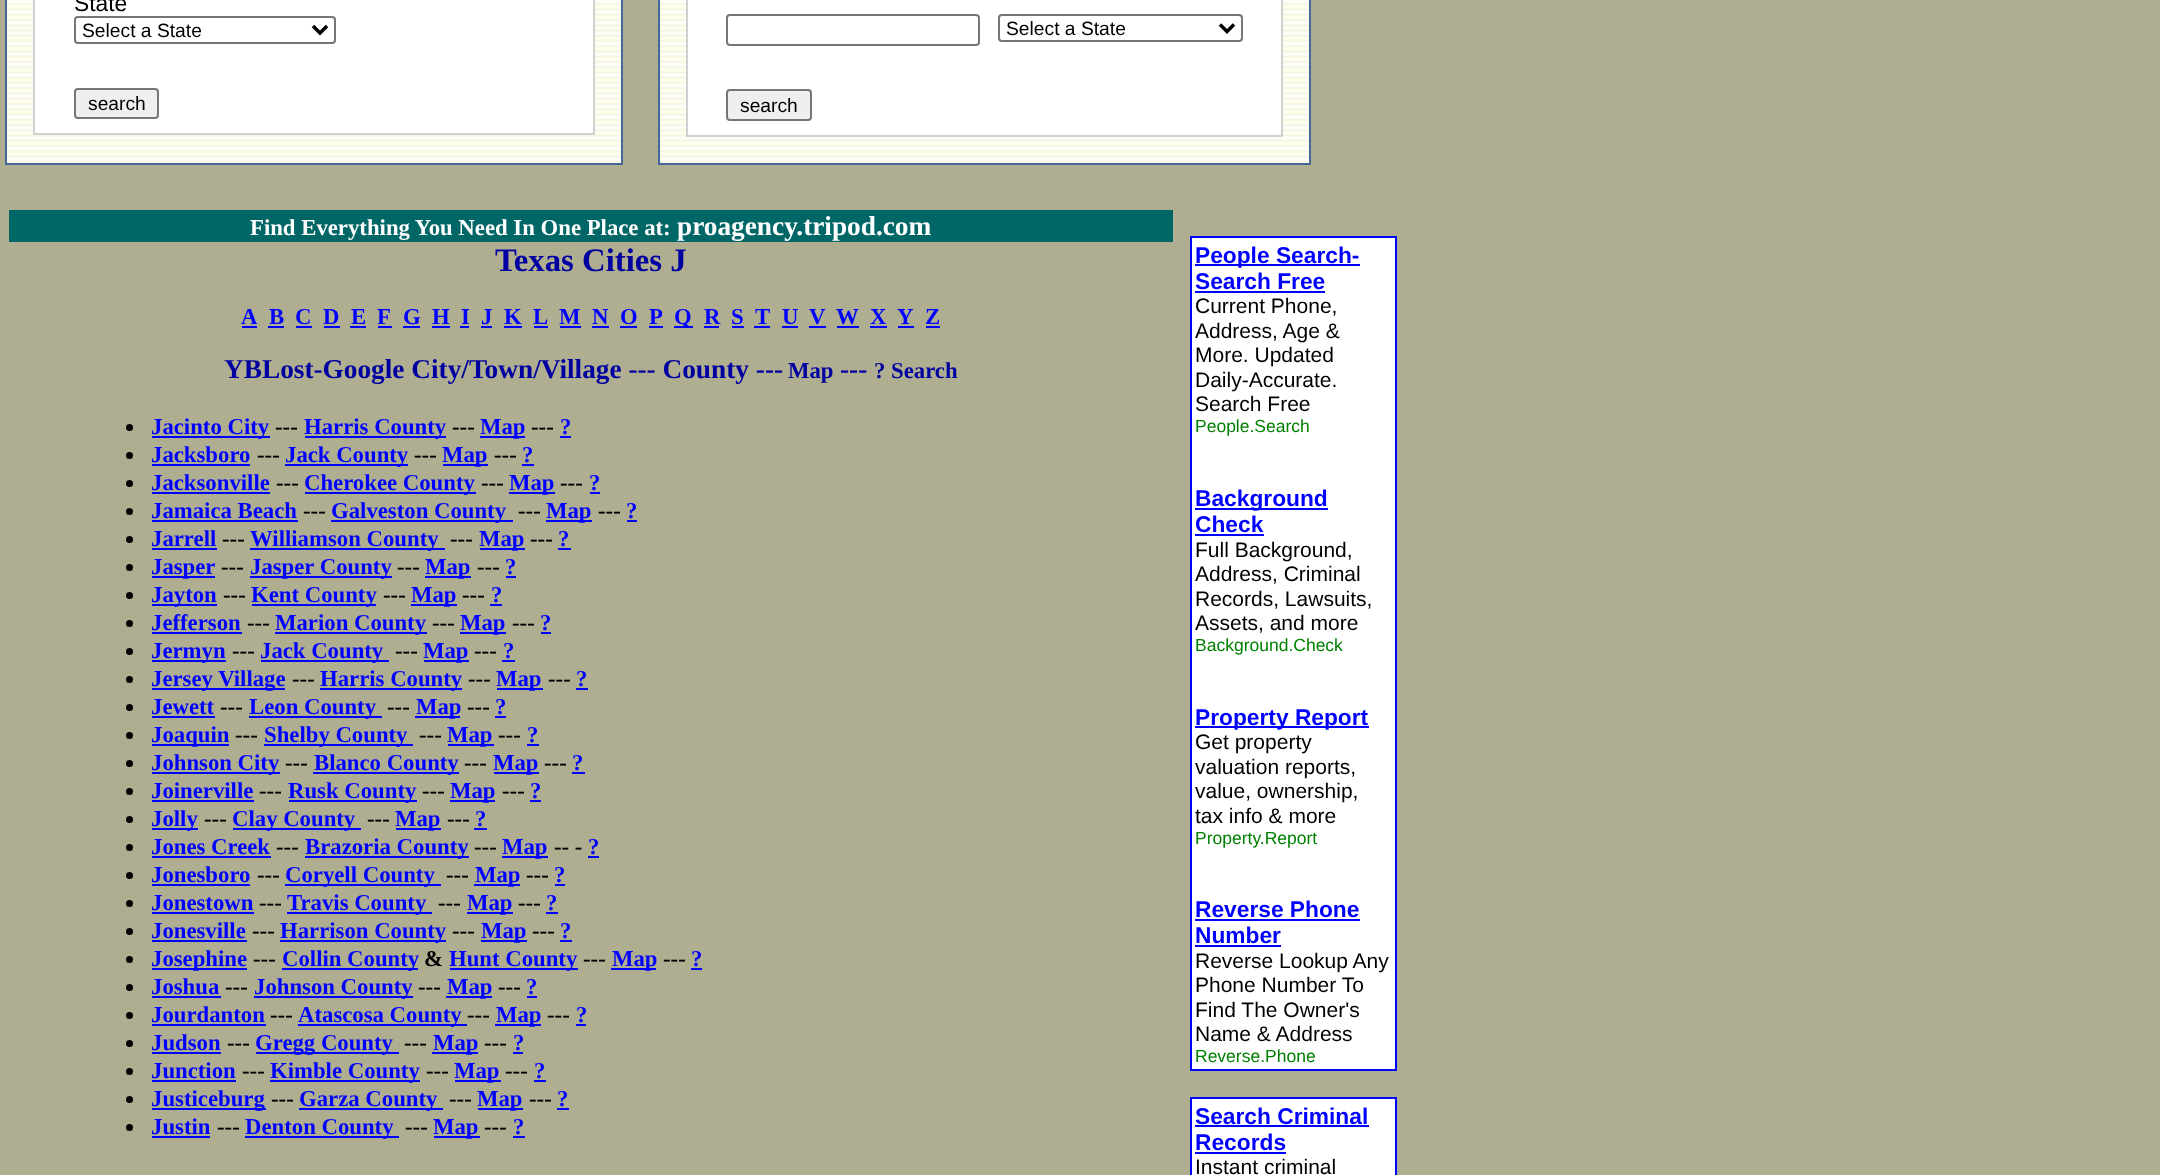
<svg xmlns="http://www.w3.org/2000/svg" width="2160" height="1175">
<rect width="100%" height="100%" fill="#afae90"/>
<image x="7" y="0" width="614" height="163" href="media/1.png"/>
<rect x="6" y="-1" width="616" height="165" fill="none" stroke="#469" stroke-width="2"/>
<rect x="34" y="-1" width="560" height="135" fill="#fff" stroke="#d0d0d0" stroke-width="2"/>
<text x="74" y="11" style="font-family:Liberation Sans;font-size:22.75px;fill:#000">State</text>
<rect x="75" y="17" width="260" height="26" rx="3" fill="none" stroke="#767676" stroke-width="2"/>
<path d="M313 26l7 7l7-7" fill="none" stroke="#000" stroke-width="3.5"/>
<text x="82" y="37" style="font-family:Liberation Sans;font-size:19.25px;fill:#000">Select a State</text>
<rect x="75" y="89" width="83" height="29" rx="3" fill="#efefef" stroke="#767676" stroke-width="2"/>
<text x="88" y="110" style="font-family:Liberation Sans;font-size:19.25px;fill:#000">search</text>
<image x="660" y="0" width="649" height="163" href="media/2.png"/>
<rect x="659" y="-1" width="651" height="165" fill="none" stroke="#469" stroke-width="2"/>
<rect x="687" y="-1" width="595" height="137" fill="#fff" stroke="#d0d0d0" stroke-width="2"/>
<rect x="727" y="15" width="252" height="30" rx="3" fill="none" stroke="#767676" stroke-width="2"/>
<rect x="999" y="15" width="243" height="26" rx="3" fill="none" stroke="#767676" stroke-width="2"/>
<path d="M1220 24.5l7 7l7-7" fill="none" stroke="#000" stroke-width="3.5"/>
<text x="1006" y="35" style="font-family:Liberation Sans;font-size:19.25px;fill:#000">Select a State</text>
<rect x="727" y="90" width="84" height="30" rx="3" fill="#efefef" stroke="#767676" stroke-width="2"/>
<text x="740" y="112" style="font-family:Liberation Sans;font-size:19.25px;fill:#000">search</text>
<rect x="9" y="210" width="1164" height="32" fill="#066"/>
<text x="250" y="235" style="font-family:Liberation Serif;font-size:22.75px;font-weight:bold;fill:#fff">Find Everything You Need In One Place at:</text>
<text x="677" y="235" style="font-family:Liberation Serif;font-size:27.3px;font-weight:bold;fill:#fff">proagency.tripod.com</text>
<text x="495" y="271" style="font-family:Liberation Serif;font-size:32.75px;font-weight:bold;fill:#0000a0">Texas Cities J</text>
<text x="241" y="324" style="font-family:Liberation Serif;font-size:22.75px;font-weight:bold;fill:#00f">A</text>
<rect x="242" y="326" width="15" height="2" fill="#00f"/>
<text x="269" y="324" style="font-family:Liberation Serif;font-size:22.75px;font-weight:bold;fill:#00f">B</text>
<rect x="268" y="326" width="16" height="2" fill="#00f"/>
<text x="295" y="324" style="font-family:Liberation Serif;font-size:22.75px;font-weight:bold;fill:#00f">C</text>
<rect x="296" y="326" width="16" height="2" fill="#00f"/>
<text x="323" y="324" style="font-family:Liberation Serif;font-size:22.75px;font-weight:bold;fill:#00f">D</text>
<rect x="324" y="326" width="16" height="2" fill="#00f"/>
<text x="351" y="324" style="font-family:Liberation Serif;font-size:22.75px;font-weight:bold;fill:#00f">E</text>
<rect x="350" y="326" width="16" height="2" fill="#00f"/>
<text x="377" y="324" style="font-family:Liberation Serif;font-size:22.75px;font-weight:bold;fill:#00f">F</text>
<rect x="378" y="326" width="14" height="2" fill="#00f"/>
<text x="403" y="324" style="font-family:Liberation Serif;font-size:22.75px;font-weight:bold;fill:#00f">G</text>
<rect x="403" y="326" width="17" height="2" fill="#00f"/>
<text x="432" y="324" style="font-family:Liberation Serif;font-size:22.75px;font-weight:bold;fill:#00f">H</text>
<rect x="432" y="326" width="18" height="2" fill="#00f"/>
<text x="461" y="324" style="font-family:Liberation Serif;font-size:22.75px;font-weight:bold;fill:#00f">I</text>
<rect x="460" y="326" width="9" height="2" fill="#00f"/>
<text x="481" y="324" style="font-family:Liberation Serif;font-size:22.75px;font-weight:bold;fill:#00f">J</text>
<rect x="481" y="326" width="11" height="2" fill="#00f"/>
<text x="504" y="324" style="font-family:Liberation Serif;font-size:22.75px;font-weight:bold;fill:#00f">K</text>
<rect x="504" y="326" width="18" height="2" fill="#00f"/>
<text x="533" y="324" style="font-family:Liberation Serif;font-size:22.75px;font-weight:bold;fill:#00f">L</text>
<rect x="534" y="326" width="14" height="2" fill="#00f"/>
<text x="559" y="324" style="font-family:Liberation Serif;font-size:22.75px;font-weight:bold;fill:#00f">M</text>
<rect x="560" y="326" width="21" height="2" fill="#00f"/>
<text x="592" y="324" style="font-family:Liberation Serif;font-size:22.75px;font-weight:bold;fill:#00f">N</text>
<rect x="592" y="326" width="17" height="2" fill="#00f"/>
<text x="620" y="324" style="font-family:Liberation Serif;font-size:22.75px;font-weight:bold;fill:#00f">O</text>
<rect x="620" y="326" width="17" height="2" fill="#00f"/>
<text x="649" y="324" style="font-family:Liberation Serif;font-size:22.75px;font-weight:bold;fill:#00f">P</text>
<rect x="649" y="326" width="14" height="2" fill="#00f"/>
<rect x="674" y="326" width="19" height="2" fill="#00f"/>
<text x="674" y="324" style="font-family:Liberation Serif;font-size:22.75px;font-weight:bold;fill:#00f">Q</text>
<text x="704" y="324" style="font-family:Liberation Serif;font-size:22.75px;font-weight:bold;fill:#00f">R</text>
<rect x="704" y="326" width="15" height="2" fill="#00f"/>
<text x="731" y="324" style="font-family:Liberation Serif;font-size:22.75px;font-weight:bold;fill:#00f">S</text>
<rect x="732" y="326" width="12" height="2" fill="#00f"/>
<text x="755" y="324" style="font-family:Liberation Serif;font-size:22.75px;font-weight:bold;fill:#00f">T</text>
<rect x="754" y="326" width="16" height="2" fill="#00f"/>
<text x="782" y="324" style="font-family:Liberation Serif;font-size:22.75px;font-weight:bold;fill:#00f">U</text>
<rect x="782" y="326" width="16" height="2" fill="#00f"/>
<text x="809" y="324" style="font-family:Liberation Serif;font-size:22.75px;font-weight:bold;fill:#00f">V</text>
<rect x="809" y="326" width="17" height="2" fill="#00f"/>
<text x="836" y="324" style="font-family:Liberation Serif;font-size:22.75px;font-weight:bold;fill:#00f">W</text>
<rect x="837" y="326" width="22" height="2" fill="#00f"/>
<text x="870" y="324" style="font-family:Liberation Serif;font-size:22.75px;font-weight:bold;fill:#00f">X</text>
<rect x="870" y="326" width="17" height="2" fill="#00f"/>
<text x="897" y="324" style="font-family:Liberation Serif;font-size:22.75px;font-weight:bold;fill:#00f">Y</text>
<rect x="898" y="326" width="16" height="2" fill="#00f"/>
<text x="925" y="324" style="font-family:Liberation Serif;font-size:22.75px;font-weight:bold;fill:#00f">Z</text>
<rect x="926" y="326" width="14" height="2" fill="#00f"/>
<text x="224" y="378" style="font-family:Liberation Serif;font-size:27.3px;font-weight:bold;fill:#0000a0">YBLost-Google City/Town/Village --- County ---</text>
<text x="788" y="378" style="font-family:Liberation Serif;font-size:22.75px;font-weight:bold;fill:#0000a0">Map</text>
<text x="840" y="378" style="font-family:Liberation Serif;font-size:27.3px;font-weight:bold;fill:#0000a0">---</text>
<text x="874" y="378" style="font-family:Liberation Serif;font-size:22.75px;font-weight:bold;fill:#0000a0">? Search</text>
<circle cx="129.5" cy="427.5" r="3.5" fill="#000"/>
<rect x="152" y="436" width="118" height="2" fill="#00f"/>
<text x="151" y="434" style="font-family:Liberation Serif;font-size:22.75px;font-weight:bold;fill:#00f">Jacinto City</text>
<text x="275" y="434" style="font-family:Liberation Serif;font-size:22.75px;font-weight:bold;fill:#000">---</text>
<rect x="305" y="436" width="141" height="2" fill="#00f"/>
<text x="304" y="434" style="font-family:Liberation Serif;font-size:22.75px;font-weight:bold;fill:#00f">Harris County</text>
<text x="452" y="434" style="font-family:Liberation Serif;font-size:22.75px;font-weight:bold;fill:#000">---</text>
<rect x="480" y="436" width="45" height="2" fill="#00f"/>
<text x="480" y="434" style="font-family:Liberation Serif;font-size:22.75px;font-weight:bold;fill:#00f">Map</text>
<text x="531" y="434" style="font-family:Liberation Serif;font-size:22.75px;font-weight:bold;fill:#000">---</text>
<text x="560" y="434" style="font-family:Liberation Serif;font-size:22.75px;font-weight:bold;fill:#00f">?</text>
<rect x="560" y="436" width="11" height="2" fill="#00f"/>
<circle cx="129.5" cy="455.5" r="3.5" fill="#000"/>
<text x="151" y="462" style="font-family:Liberation Serif;font-size:22.75px;font-weight:bold;fill:#00f">Jacksboro</text>
<rect x="152" y="464" width="98" height="2" fill="#00f"/>
<text x="257" y="462" style="font-family:Liberation Serif;font-size:22.75px;font-weight:bold;fill:#000">---</text>
<rect x="285" y="464" width="123" height="2" fill="#00f"/>
<text x="285" y="462" style="font-family:Liberation Serif;font-size:22.75px;font-weight:bold;fill:#00f">Jack County</text>
<text x="414" y="462" style="font-family:Liberation Serif;font-size:22.75px;font-weight:bold;fill:#000">---</text>
<rect x="443" y="464" width="45" height="2" fill="#00f"/>
<text x="442" y="462" style="font-family:Liberation Serif;font-size:22.75px;font-weight:bold;fill:#00f">Map</text>
<text x="494" y="462" style="font-family:Liberation Serif;font-size:22.75px;font-weight:bold;fill:#000">---</text>
<text x="522" y="462" style="font-family:Liberation Serif;font-size:22.75px;font-weight:bold;fill:#00f">?</text>
<rect x="522" y="464" width="12" height="2" fill="#00f"/>
<circle cx="129.5" cy="483.5" r="3.5" fill="#000"/>
<text x="151" y="490" style="font-family:Liberation Serif;font-size:22.75px;font-weight:bold;fill:#00f">Jacksonville</text>
<rect x="152" y="492" width="118" height="2" fill="#00f"/>
<text x="276" y="490" style="font-family:Liberation Serif;font-size:22.75px;font-weight:bold;fill:#000">---</text>
<rect x="305" y="492" width="171" height="2" fill="#00f"/>
<text x="304" y="490" style="font-family:Liberation Serif;font-size:22.75px;font-weight:bold;fill:#00f">Cherokee County</text>
<text x="481" y="490" style="font-family:Liberation Serif;font-size:22.75px;font-weight:bold;fill:#000">---</text>
<rect x="509" y="492" width="46" height="2" fill="#00f"/>
<text x="509" y="490" style="font-family:Liberation Serif;font-size:22.75px;font-weight:bold;fill:#00f">Map</text>
<text x="560" y="490" style="font-family:Liberation Serif;font-size:22.75px;font-weight:bold;fill:#000">---</text>
<text x="589" y="490" style="font-family:Liberation Serif;font-size:22.75px;font-weight:bold;fill:#00f">?</text>
<rect x="590" y="492" width="10" height="2" fill="#00f"/>
<circle cx="129.5" cy="511.5" r="3.5" fill="#000"/>
<text x="151" y="518" style="font-family:Liberation Serif;font-size:22.75px;font-weight:bold;fill:#00f">Jamaica Beach</text>
<rect x="152" y="520" width="146" height="2" fill="#00f"/>
<text x="303" y="518" style="font-family:Liberation Serif;font-size:22.75px;font-weight:bold;fill:#000">---</text>
<rect x="331" y="520" width="182" height="2" fill="#00f"/>
<text x="331" y="518" style="font-family:Liberation Serif;font-size:22.75px;font-weight:bold;fill:#00f">Galveston County</text>
<text x="518" y="518" style="font-family:Liberation Serif;font-size:22.75px;font-weight:bold;fill:#000">---</text>
<rect x="546" y="520" width="46" height="2" fill="#00f"/>
<text x="546" y="518" style="font-family:Liberation Serif;font-size:22.75px;font-weight:bold;fill:#00f">Map</text>
<text x="598" y="518" style="font-family:Liberation Serif;font-size:22.75px;font-weight:bold;fill:#000">---</text>
<text x="626" y="518" style="font-family:Liberation Serif;font-size:22.75px;font-weight:bold;fill:#00f">?</text>
<rect x="627" y="520" width="10" height="2" fill="#00f"/>
<circle cx="129.5" cy="539.5" r="3.5" fill="#000"/>
<text x="151" y="546" style="font-family:Liberation Serif;font-size:22.75px;font-weight:bold;fill:#00f">Jarrell</text>
<rect x="152" y="548" width="65" height="2" fill="#00f"/>
<text x="222" y="546" style="font-family:Liberation Serif;font-size:22.75px;font-weight:bold;fill:#000">---</text>
<rect x="250" y="548" width="195" height="2" fill="#00f"/>
<text x="250" y="546" style="font-family:Liberation Serif;font-size:22.75px;font-weight:bold;fill:#00f">Williamson County</text>
<text x="450" y="546" style="font-family:Liberation Serif;font-size:22.75px;font-weight:bold;fill:#000">---</text>
<rect x="480" y="548" width="45" height="2" fill="#00f"/>
<text x="479" y="546" style="font-family:Liberation Serif;font-size:22.75px;font-weight:bold;fill:#00f">Map</text>
<text x="530" y="546" style="font-family:Liberation Serif;font-size:22.75px;font-weight:bold;fill:#000">---</text>
<text x="558" y="546" style="font-family:Liberation Serif;font-size:22.75px;font-weight:bold;fill:#00f">?</text>
<rect x="558" y="548" width="13" height="2" fill="#00f"/>
<circle cx="129.5" cy="567.5" r="3.5" fill="#000"/>
<rect x="152" y="576" width="63" height="2" fill="#00f"/>
<text x="151" y="574" style="font-family:Liberation Serif;font-size:22.75px;font-weight:bold;fill:#00f">Jasper</text>
<text x="221" y="574" style="font-family:Liberation Serif;font-size:22.75px;font-weight:bold;fill:#000">---</text>
<rect x="250" y="576" width="142" height="2" fill="#00f"/>
<text x="250" y="574" style="font-family:Liberation Serif;font-size:22.75px;font-weight:bold;fill:#00f">Jasper County</text>
<text x="397" y="574" style="font-family:Liberation Serif;font-size:22.75px;font-weight:bold;fill:#000">---</text>
<rect x="425" y="576" width="46" height="2" fill="#00f"/>
<text x="425" y="574" style="font-family:Liberation Serif;font-size:22.75px;font-weight:bold;fill:#00f">Map</text>
<text x="477" y="574" style="font-family:Liberation Serif;font-size:22.75px;font-weight:bold;fill:#000">---</text>
<text x="505" y="574" style="font-family:Liberation Serif;font-size:22.75px;font-weight:bold;fill:#00f">?</text>
<rect x="506" y="576" width="10" height="2" fill="#00f"/>
<circle cx="129.5" cy="595.5" r="3.5" fill="#000"/>
<rect x="152" y="604" width="65" height="2" fill="#00f"/>
<text x="151" y="602" style="font-family:Liberation Serif;font-size:22.75px;font-weight:bold;fill:#00f">Jayton</text>
<text x="223" y="602" style="font-family:Liberation Serif;font-size:22.75px;font-weight:bold;fill:#000">---</text>
<rect x="252" y="604" width="124" height="2" fill="#00f"/>
<text x="251" y="602" style="font-family:Liberation Serif;font-size:22.75px;font-weight:bold;fill:#00f">Kent County</text>
<text x="383" y="602" style="font-family:Liberation Serif;font-size:22.75px;font-weight:bold;fill:#000">---</text>
<rect x="411" y="604" width="46" height="2" fill="#00f"/>
<text x="411" y="602" style="font-family:Liberation Serif;font-size:22.75px;font-weight:bold;fill:#00f">Map</text>
<text x="462" y="602" style="font-family:Liberation Serif;font-size:22.75px;font-weight:bold;fill:#000">---</text>
<text x="491" y="602" style="font-family:Liberation Serif;font-size:22.75px;font-weight:bold;fill:#00f">?</text>
<rect x="490" y="604" width="12" height="2" fill="#00f"/>
<circle cx="129.5" cy="623.5" r="3.5" fill="#000"/>
<text x="151" y="630" style="font-family:Liberation Serif;font-size:22.75px;font-weight:bold;fill:#00f">Jefferson</text>
<rect x="152" y="632" width="90" height="2" fill="#00f"/>
<text x="247" y="630" style="font-family:Liberation Serif;font-size:22.75px;font-weight:bold;fill:#000">---</text>
<rect x="275" y="632" width="152" height="2" fill="#00f"/>
<text x="275" y="630" style="font-family:Liberation Serif;font-size:22.75px;font-weight:bold;fill:#00f">Marion County</text>
<text x="432" y="630" style="font-family:Liberation Serif;font-size:22.75px;font-weight:bold;fill:#000">---</text>
<rect x="460" y="632" width="46" height="2" fill="#00f"/>
<text x="460" y="630" style="font-family:Liberation Serif;font-size:22.75px;font-weight:bold;fill:#00f">Map</text>
<text x="512" y="630" style="font-family:Liberation Serif;font-size:22.75px;font-weight:bold;fill:#000">---</text>
<text x="540" y="630" style="font-family:Liberation Serif;font-size:22.75px;font-weight:bold;fill:#00f">?</text>
<rect x="541" y="632" width="10" height="2" fill="#00f"/>
<circle cx="129.5" cy="651.5" r="3.5" fill="#000"/>
<rect x="152" y="660" width="74" height="2" fill="#00f"/>
<text x="151" y="658" style="font-family:Liberation Serif;font-size:22.75px;font-weight:bold;fill:#00f">Jermyn</text>
<text x="232" y="658" style="font-family:Liberation Serif;font-size:22.75px;font-weight:bold;fill:#000">---</text>
<rect x="261" y="660" width="128" height="2" fill="#00f"/>
<text x="260" y="658" style="font-family:Liberation Serif;font-size:22.75px;font-weight:bold;fill:#00f">Jack County</text>
<text x="395" y="658" style="font-family:Liberation Serif;font-size:22.75px;font-weight:bold;fill:#000">---</text>
<rect x="424" y="660" width="45" height="2" fill="#00f"/>
<text x="423" y="658" style="font-family:Liberation Serif;font-size:22.75px;font-weight:bold;fill:#00f">Map</text>
<text x="474" y="658" style="font-family:Liberation Serif;font-size:22.75px;font-weight:bold;fill:#000">---</text>
<text x="503" y="658" style="font-family:Liberation Serif;font-size:22.75px;font-weight:bold;fill:#00f">?</text>
<rect x="502" y="660" width="13" height="2" fill="#00f"/>
<circle cx="129.5" cy="679.5" r="3.5" fill="#000"/>
<rect x="152" y="688" width="133" height="2" fill="#00f"/>
<text x="151" y="686" style="font-family:Liberation Serif;font-size:22.75px;font-weight:bold;fill:#00f">Jersey Village</text>
<text x="292" y="686" style="font-family:Liberation Serif;font-size:22.75px;font-weight:bold;fill:#000">---</text>
<rect x="320" y="688" width="142" height="2" fill="#00f"/>
<text x="320" y="686" style="font-family:Liberation Serif;font-size:22.75px;font-weight:bold;fill:#00f">Harris County</text>
<text x="468" y="686" style="font-family:Liberation Serif;font-size:22.75px;font-weight:bold;fill:#000">---</text>
<rect x="497" y="688" width="46" height="2" fill="#00f"/>
<text x="496" y="686" style="font-family:Liberation Serif;font-size:22.75px;font-weight:bold;fill:#00f">Map</text>
<text x="548" y="686" style="font-family:Liberation Serif;font-size:22.75px;font-weight:bold;fill:#000">---</text>
<text x="576" y="686" style="font-family:Liberation Serif;font-size:22.75px;font-weight:bold;fill:#00f">?</text>
<rect x="576" y="688" width="12" height="2" fill="#00f"/>
<circle cx="129.5" cy="707.5" r="3.5" fill="#000"/>
<text x="151" y="714" style="font-family:Liberation Serif;font-size:22.75px;font-weight:bold;fill:#00f">Jewett</text>
<rect x="152" y="716" width="63" height="2" fill="#00f"/>
<text x="220" y="714" style="font-family:Liberation Serif;font-size:22.75px;font-weight:bold;fill:#000">---</text>
<rect x="249" y="716" width="133" height="2" fill="#00f"/>
<text x="249" y="714" style="font-family:Liberation Serif;font-size:22.75px;font-weight:bold;fill:#00f">Leon County</text>
<text x="387" y="714" style="font-family:Liberation Serif;font-size:22.75px;font-weight:bold;fill:#000">---</text>
<rect x="415" y="716" width="45" height="2" fill="#00f"/>
<text x="416" y="714" style="font-family:Liberation Serif;font-size:22.75px;font-weight:bold;fill:#00f">Map</text>
<text x="467" y="714" style="font-family:Liberation Serif;font-size:22.75px;font-weight:bold;fill:#000">---</text>
<text x="495" y="714" style="font-family:Liberation Serif;font-size:22.75px;font-weight:bold;fill:#00f">?</text>
<rect x="495" y="716" width="11" height="2" fill="#00f"/>
<circle cx="129.5" cy="735.5" r="3.5" fill="#000"/>
<rect x="152" y="744" width="77" height="2" fill="#00f"/>
<text x="151" y="742" style="font-family:Liberation Serif;font-size:22.75px;font-weight:bold;fill:#00f">Joaquin</text>
<text x="235" y="742" style="font-family:Liberation Serif;font-size:22.75px;font-weight:bold;fill:#000">---</text>
<rect x="264" y="744" width="149" height="2" fill="#00f"/>
<text x="264" y="742" style="font-family:Liberation Serif;font-size:22.75px;font-weight:bold;fill:#00f">Shelby County</text>
<text x="419" y="742" style="font-family:Liberation Serif;font-size:22.75px;font-weight:bold;fill:#000">---</text>
<rect x="448" y="744" width="46" height="2" fill="#00f"/>
<text x="447" y="742" style="font-family:Liberation Serif;font-size:22.75px;font-weight:bold;fill:#00f">Map</text>
<text x="498" y="742" style="font-family:Liberation Serif;font-size:22.75px;font-weight:bold;fill:#000">---</text>
<text x="527" y="742" style="font-family:Liberation Serif;font-size:22.75px;font-weight:bold;fill:#00f">?</text>
<rect x="527" y="744" width="12" height="2" fill="#00f"/>
<circle cx="129.5" cy="763.5" r="3.5" fill="#000"/>
<rect x="152" y="772" width="128" height="2" fill="#00f"/>
<text x="151" y="770" style="font-family:Liberation Serif;font-size:22.75px;font-weight:bold;fill:#00f">Johnson City</text>
<text x="285" y="770" style="font-family:Liberation Serif;font-size:22.75px;font-weight:bold;fill:#000">---</text>
<rect x="313" y="772" width="146" height="2" fill="#00f"/>
<text x="314" y="770" style="font-family:Liberation Serif;font-size:22.75px;font-weight:bold;fill:#00f">Blanco County</text>
<text x="464" y="770" style="font-family:Liberation Serif;font-size:22.75px;font-weight:bold;fill:#000">---</text>
<rect x="494" y="772" width="45" height="2" fill="#00f"/>
<text x="493" y="770" style="font-family:Liberation Serif;font-size:22.75px;font-weight:bold;fill:#00f">Map</text>
<text x="544" y="770" style="font-family:Liberation Serif;font-size:22.75px;font-weight:bold;fill:#000">---</text>
<text x="572" y="770" style="font-family:Liberation Serif;font-size:22.75px;font-weight:bold;fill:#00f">?</text>
<rect x="572" y="772" width="13" height="2" fill="#00f"/>
<circle cx="129.5" cy="791.5" r="3.5" fill="#000"/>
<text x="151" y="798" style="font-family:Liberation Serif;font-size:22.75px;font-weight:bold;fill:#00f">Joinerville</text>
<rect x="152" y="800" width="102" height="2" fill="#00f"/>
<text x="259" y="798" style="font-family:Liberation Serif;font-size:22.75px;font-weight:bold;fill:#000">---</text>
<rect x="289" y="800" width="128" height="2" fill="#00f"/>
<text x="288" y="798" style="font-family:Liberation Serif;font-size:22.75px;font-weight:bold;fill:#00f">Rusk County</text>
<text x="422" y="798" style="font-family:Liberation Serif;font-size:22.75px;font-weight:bold;fill:#000">---</text>
<rect x="450" y="800" width="45" height="2" fill="#00f"/>
<text x="450" y="798" style="font-family:Liberation Serif;font-size:22.75px;font-weight:bold;fill:#00f">Map</text>
<text x="502" y="798" style="font-family:Liberation Serif;font-size:22.75px;font-weight:bold;fill:#000">---</text>
<text x="530" y="798" style="font-family:Liberation Serif;font-size:22.75px;font-weight:bold;fill:#00f">?</text>
<rect x="530" y="800" width="11" height="2" fill="#00f"/>
<circle cx="129.5" cy="819.5" r="3.5" fill="#000"/>
<rect x="152" y="828" width="46" height="2" fill="#00f"/>
<text x="151" y="826" style="font-family:Liberation Serif;font-size:22.75px;font-weight:bold;fill:#00f">Jolly</text>
<text x="204" y="826" style="font-family:Liberation Serif;font-size:22.75px;font-weight:bold;fill:#000">---</text>
<rect x="233" y="828" width="128" height="2" fill="#00f"/>
<text x="232" y="826" style="font-family:Liberation Serif;font-size:22.75px;font-weight:bold;fill:#00f">Clay County</text>
<text x="367" y="826" style="font-family:Liberation Serif;font-size:22.75px;font-weight:bold;fill:#000">---</text>
<rect x="396" y="828" width="45" height="2" fill="#00f"/>
<text x="395" y="826" style="font-family:Liberation Serif;font-size:22.75px;font-weight:bold;fill:#00f">Map</text>
<text x="447" y="826" style="font-family:Liberation Serif;font-size:22.75px;font-weight:bold;fill:#000">---</text>
<text x="475" y="826" style="font-family:Liberation Serif;font-size:22.75px;font-weight:bold;fill:#00f">?</text>
<rect x="474" y="828" width="13" height="2" fill="#00f"/>
<circle cx="129.5" cy="847.5" r="3.5" fill="#000"/>
<text x="151" y="854" style="font-family:Liberation Serif;font-size:22.75px;font-weight:bold;fill:#00f">Jones Creek</text>
<rect x="152" y="856" width="119" height="2" fill="#00f"/>
<text x="276" y="854" style="font-family:Liberation Serif;font-size:22.75px;font-weight:bold;fill:#000">---</text>
<rect x="305" y="856" width="164" height="2" fill="#00f"/>
<text x="305" y="854" style="font-family:Liberation Serif;font-size:22.75px;font-weight:bold;fill:#00f">Brazoria County</text>
<text x="474" y="854" style="font-family:Liberation Serif;font-size:22.75px;font-weight:bold;fill:#000">---</text>
<rect x="502" y="856" width="46" height="2" fill="#00f"/>
<text x="502" y="854" style="font-family:Liberation Serif;font-size:22.75px;font-weight:bold;fill:#00f">Map</text>
<text x="554" y="854" style="font-family:Liberation Serif;font-size:22.75px;font-weight:bold;fill:#000">-- -</text>
<text x="588" y="854" style="font-family:Liberation Serif;font-size:22.75px;font-weight:bold;fill:#00f">?</text>
<rect x="588" y="856" width="11" height="2" fill="#00f"/>
<circle cx="129.5" cy="875.5" r="3.5" fill="#000"/>
<text x="151" y="882" style="font-family:Liberation Serif;font-size:22.75px;font-weight:bold;fill:#00f">Jonesboro</text>
<rect x="152" y="884" width="98" height="2" fill="#00f"/>
<text x="257" y="882" style="font-family:Liberation Serif;font-size:22.75px;font-weight:bold;fill:#000">---</text>
<rect x="285" y="884" width="156" height="2" fill="#00f"/>
<text x="285" y="882" style="font-family:Liberation Serif;font-size:22.75px;font-weight:bold;fill:#00f">Coryell County</text>
<text x="446" y="882" style="font-family:Liberation Serif;font-size:22.75px;font-weight:bold;fill:#000">---</text>
<rect x="474" y="884" width="46" height="2" fill="#00f"/>
<text x="475" y="882" style="font-family:Liberation Serif;font-size:22.75px;font-weight:bold;fill:#00f">Map</text>
<text x="526" y="882" style="font-family:Liberation Serif;font-size:22.75px;font-weight:bold;fill:#000">---</text>
<text x="554" y="882" style="font-family:Liberation Serif;font-size:22.75px;font-weight:bold;fill:#00f">?</text>
<rect x="555" y="884" width="10" height="2" fill="#00f"/>
<circle cx="129.5" cy="903.5" r="3.5" fill="#000"/>
<text x="151" y="910" style="font-family:Liberation Serif;font-size:22.75px;font-weight:bold;fill:#00f">Jonestown</text>
<rect x="152" y="912" width="102" height="2" fill="#00f"/>
<text x="259" y="910" style="font-family:Liberation Serif;font-size:22.75px;font-weight:bold;fill:#000">---</text>
<rect x="287" y="912" width="145" height="2" fill="#00f"/>
<text x="287" y="910" style="font-family:Liberation Serif;font-size:22.75px;font-weight:bold;fill:#00f">Travis County</text>
<text x="438" y="910" style="font-family:Liberation Serif;font-size:22.75px;font-weight:bold;fill:#000">---</text>
<rect x="467" y="912" width="46" height="2" fill="#00f"/>
<text x="467" y="910" style="font-family:Liberation Serif;font-size:22.75px;font-weight:bold;fill:#00f">Map</text>
<text x="518" y="910" style="font-family:Liberation Serif;font-size:22.75px;font-weight:bold;fill:#000">---</text>
<text x="546" y="910" style="font-family:Liberation Serif;font-size:22.75px;font-weight:bold;fill:#00f">?</text>
<rect x="546" y="912" width="12" height="2" fill="#00f"/>
<circle cx="129.5" cy="931.5" r="3.5" fill="#000"/>
<text x="151" y="938" style="font-family:Liberation Serif;font-size:22.75px;font-weight:bold;fill:#00f">Jonesville</text>
<rect x="152" y="940" width="95" height="2" fill="#00f"/>
<text x="252" y="938" style="font-family:Liberation Serif;font-size:22.75px;font-weight:bold;fill:#000">---</text>
<rect x="280" y="940" width="166" height="2" fill="#00f"/>
<text x="280" y="938" style="font-family:Liberation Serif;font-size:22.75px;font-weight:bold;fill:#00f">Harrison County</text>
<text x="452" y="938" style="font-family:Liberation Serif;font-size:22.75px;font-weight:bold;fill:#000">---</text>
<rect x="481" y="940" width="46" height="2" fill="#00f"/>
<text x="481" y="938" style="font-family:Liberation Serif;font-size:22.75px;font-weight:bold;fill:#00f">Map</text>
<text x="532" y="938" style="font-family:Liberation Serif;font-size:22.75px;font-weight:bold;fill:#000">---</text>
<text x="560" y="938" style="font-family:Liberation Serif;font-size:22.75px;font-weight:bold;fill:#00f">?</text>
<rect x="560" y="940" width="12" height="2" fill="#00f"/>
<circle cx="129.5" cy="959.5" r="3.5" fill="#000"/>
<rect x="152" y="968" width="95" height="2" fill="#00f"/>
<text x="151" y="966" style="font-family:Liberation Serif;font-size:22.75px;font-weight:bold;fill:#00f">Josephine</text>
<text x="253" y="966" style="font-family:Liberation Serif;font-size:22.75px;font-weight:bold;fill:#000">---</text>
<rect x="282" y="968" width="136" height="2" fill="#00f"/>
<text x="282" y="966" style="font-family:Liberation Serif;font-size:22.75px;font-weight:bold;fill:#00f">Collin County</text>
<text x="424" y="966" style="font-family:Liberation Serif;font-size:22.75px;font-weight:bold;fill:#000">&amp;</text>
<rect x="450" y="968" width="128" height="2" fill="#00f"/>
<text x="449" y="966" style="font-family:Liberation Serif;font-size:22.75px;font-weight:bold;fill:#00f">Hunt County</text>
<text x="583" y="966" style="font-family:Liberation Serif;font-size:22.75px;font-weight:bold;fill:#000">---</text>
<rect x="611" y="968" width="45" height="2" fill="#00f"/>
<text x="612" y="966" style="font-family:Liberation Serif;font-size:22.75px;font-weight:bold;fill:#00f">Map</text>
<text x="663" y="966" style="font-family:Liberation Serif;font-size:22.75px;font-weight:bold;fill:#000">---</text>
<text x="691" y="966" style="font-family:Liberation Serif;font-size:22.75px;font-weight:bold;fill:#00f">?</text>
<rect x="691" y="968" width="11" height="2" fill="#00f"/>
<circle cx="129.5" cy="987.5" r="3.5" fill="#000"/>
<text x="151" y="994" style="font-family:Liberation Serif;font-size:22.75px;font-weight:bold;fill:#00f">Joshua</text>
<rect x="152" y="996" width="69" height="2" fill="#00f"/>
<text x="225" y="994" style="font-family:Liberation Serif;font-size:22.75px;font-weight:bold;fill:#000">---</text>
<rect x="254" y="996" width="159" height="2" fill="#00f"/>
<text x="254" y="994" style="font-family:Liberation Serif;font-size:22.75px;font-weight:bold;fill:#00f">Johnson County</text>
<text x="418" y="994" style="font-family:Liberation Serif;font-size:22.75px;font-weight:bold;fill:#000">---</text>
<rect x="446" y="996" width="46" height="2" fill="#00f"/>
<text x="447" y="994" style="font-family:Liberation Serif;font-size:22.75px;font-weight:bold;fill:#00f">Map</text>
<text x="498" y="994" style="font-family:Liberation Serif;font-size:22.75px;font-weight:bold;fill:#000">---</text>
<text x="526" y="994" style="font-family:Liberation Serif;font-size:22.75px;font-weight:bold;fill:#00f">?</text>
<rect x="527" y="996" width="10" height="2" fill="#00f"/>
<circle cx="129.5" cy="1015.5" r="3.5" fill="#000"/>
<text x="151" y="1022" style="font-family:Liberation Serif;font-size:22.75px;font-weight:bold;fill:#00f">Jourdanton</text>
<rect x="152" y="1024" width="114" height="2" fill="#00f"/>
<text x="270" y="1022" style="font-family:Liberation Serif;font-size:22.75px;font-weight:bold;fill:#000">---</text>
<rect x="298" y="1024" width="169" height="2" fill="#00f"/>
<text x="298" y="1022" style="font-family:Liberation Serif;font-size:22.75px;font-weight:bold;fill:#00f">Atascosa County</text>
<text x="467" y="1022" style="font-family:Liberation Serif;font-size:22.75px;font-weight:bold;fill:#000">---</text>
<rect x="495" y="1024" width="46" height="2" fill="#00f"/>
<text x="496" y="1022" style="font-family:Liberation Serif;font-size:22.75px;font-weight:bold;fill:#00f">Map</text>
<text x="547" y="1022" style="font-family:Liberation Serif;font-size:22.75px;font-weight:bold;fill:#000">---</text>
<text x="576" y="1022" style="font-family:Liberation Serif;font-size:22.75px;font-weight:bold;fill:#00f">?</text>
<rect x="576" y="1024" width="10" height="2" fill="#00f"/>
<circle cx="129.5" cy="1043.5" r="3.5" fill="#000"/>
<text x="151" y="1050" style="font-family:Liberation Serif;font-size:22.75px;font-weight:bold;fill:#00f">Judson</text>
<rect x="152" y="1052" width="69" height="2" fill="#00f"/>
<text x="227" y="1050" style="font-family:Liberation Serif;font-size:22.75px;font-weight:bold;fill:#000">---</text>
<rect x="256" y="1052" width="143" height="2" fill="#00f"/>
<text x="255" y="1050" style="font-family:Liberation Serif;font-size:22.75px;font-weight:bold;fill:#00f">Gregg County</text>
<text x="404" y="1050" style="font-family:Liberation Serif;font-size:22.75px;font-weight:bold;fill:#000">---</text>
<rect x="432" y="1052" width="46" height="2" fill="#00f"/>
<text x="433" y="1050" style="font-family:Liberation Serif;font-size:22.75px;font-weight:bold;fill:#00f">Map</text>
<text x="484" y="1050" style="font-family:Liberation Serif;font-size:22.75px;font-weight:bold;fill:#000">---</text>
<text x="513" y="1050" style="font-family:Liberation Serif;font-size:22.75px;font-weight:bold;fill:#00f">?</text>
<rect x="513" y="1052" width="10" height="2" fill="#00f"/>
<circle cx="129.5" cy="1071.5" r="3.5" fill="#000"/>
<text x="151" y="1078" style="font-family:Liberation Serif;font-size:22.75px;font-weight:bold;fill:#00f">Junction</text>
<rect x="152" y="1080" width="84" height="2" fill="#00f"/>
<text x="242" y="1078" style="font-family:Liberation Serif;font-size:22.75px;font-weight:bold;fill:#000">---</text>
<rect x="270" y="1080" width="150" height="2" fill="#00f"/>
<text x="270" y="1078" style="font-family:Liberation Serif;font-size:22.75px;font-weight:bold;fill:#00f">Kimble County</text>
<text x="426" y="1078" style="font-family:Liberation Serif;font-size:22.75px;font-weight:bold;fill:#000">---</text>
<rect x="455" y="1080" width="46" height="2" fill="#00f"/>
<text x="454" y="1078" style="font-family:Liberation Serif;font-size:22.75px;font-weight:bold;fill:#00f">Map</text>
<text x="505" y="1078" style="font-family:Liberation Serif;font-size:22.75px;font-weight:bold;fill:#000">---</text>
<text x="534" y="1078" style="font-family:Liberation Serif;font-size:22.75px;font-weight:bold;fill:#00f">?</text>
<rect x="534" y="1080" width="12" height="2" fill="#00f"/>
<circle cx="129.5" cy="1099.5" r="3.5" fill="#000"/>
<rect x="152" y="1108" width="114" height="2" fill="#00f"/>
<text x="151" y="1106" style="font-family:Liberation Serif;font-size:22.75px;font-weight:bold;fill:#00f">Justiceburg</text>
<text x="271" y="1106" style="font-family:Liberation Serif;font-size:22.75px;font-weight:bold;fill:#000">---</text>
<rect x="299" y="1108" width="144" height="2" fill="#00f"/>
<text x="299" y="1106" style="font-family:Liberation Serif;font-size:22.75px;font-weight:bold;fill:#00f">Garza County</text>
<text x="449" y="1106" style="font-family:Liberation Serif;font-size:22.75px;font-weight:bold;fill:#000">---</text>
<rect x="478" y="1108" width="45" height="2" fill="#00f"/>
<text x="477" y="1106" style="font-family:Liberation Serif;font-size:22.75px;font-weight:bold;fill:#00f">Map</text>
<text x="529" y="1106" style="font-family:Liberation Serif;font-size:22.75px;font-weight:bold;fill:#000">---</text>
<text x="557" y="1106" style="font-family:Liberation Serif;font-size:22.75px;font-weight:bold;fill:#00f">?</text>
<rect x="557" y="1108" width="12" height="2" fill="#00f"/>
<circle cx="129.5" cy="1127.5" r="3.5" fill="#000"/>
<text x="151" y="1134" style="font-family:Liberation Serif;font-size:22.75px;font-weight:bold;fill:#00f">Justin</text>
<rect x="152" y="1136" width="58" height="2" fill="#00f"/>
<text x="217" y="1134" style="font-family:Liberation Serif;font-size:22.75px;font-weight:bold;fill:#000">---</text>
<rect x="245" y="1136" width="154" height="2" fill="#00f"/>
<text x="245" y="1134" style="font-family:Liberation Serif;font-size:22.75px;font-weight:bold;fill:#00f">Denton County</text>
<text x="405" y="1134" style="font-family:Liberation Serif;font-size:22.75px;font-weight:bold;fill:#000">---</text>
<rect x="434" y="1136" width="46" height="2" fill="#00f"/>
<text x="433" y="1134" style="font-family:Liberation Serif;font-size:22.75px;font-weight:bold;fill:#00f">Map</text>
<text x="484" y="1134" style="font-family:Liberation Serif;font-size:22.75px;font-weight:bold;fill:#000">---</text>
<text x="513" y="1134" style="font-family:Liberation Serif;font-size:22.75px;font-weight:bold;fill:#00f">?</text>
<rect x="513" y="1136" width="12" height="2" fill="#00f"/>
<rect x="1191" y="237" width="205" height="833" fill="#fff" stroke="#00f" stroke-width="2"/>
<rect x="1195" y="264" width="165" height="2" fill="#00f"/>
<text x="1195" y="263" style="font-family:Liberation Sans;font-size:22.75px;font-weight:bold;fill:#00f">People Search-</text>
<text x="1195" y="289" style="font-family:Liberation Sans;font-size:22.75px;font-weight:bold;fill:#00f">Search Free</text>
<rect x="1195" y="291" width="130" height="2" fill="#00f"/>
<text x="1195" y="313" style="font-family:Liberation Sans;font-size:21px;fill:#000">Current Phone,</text>
<text x="1195" y="338" style="font-family:Liberation Sans;font-size:21px;fill:#000">Address, Age &amp;</text>
<text x="1195" y="362" style="font-family:Liberation Sans;font-size:21px;fill:#000">More. Updated</text>
<text x="1195" y="387" style="font-family:Liberation Sans;font-size:21px;fill:#000">Daily-Accurate.</text>
<text x="1195" y="411" style="font-family:Liberation Sans;font-size:21px;fill:#000">Search Free</text>
<text x="1195" y="432" style="font-family:Liberation Sans;font-size:17.5px;fill:#008000">People.Search</text>
<rect x="1195" y="508" width="133" height="2" fill="#00f"/>
<text x="1195" y="506" style="font-family:Liberation Sans;font-size:22.75px;font-weight:bold;fill:#00f">Background</text>
<text x="1195" y="532" style="font-family:Liberation Sans;font-size:22.75px;font-weight:bold;fill:#00f">Check</text>
<rect x="1195" y="534" width="69" height="2" fill="#00f"/>
<text x="1195" y="557" style="font-family:Liberation Sans;font-size:21px;fill:#000">Full Background,</text>
<text x="1195" y="581" style="font-family:Liberation Sans;font-size:21px;fill:#000">Address, Criminal</text>
<text x="1195" y="606" style="font-family:Liberation Sans;font-size:21px;fill:#000">Records, Lawsuits,</text>
<text x="1195" y="630" style="font-family:Liberation Sans;font-size:21px;fill:#000">Assets, and more</text>
<text x="1195" y="651" style="font-family:Liberation Sans;font-size:17.5px;fill:#008000">Background.Check</text>
<rect x="1195" y="726" width="174" height="2" fill="#00f"/>
<text x="1195" y="725" style="font-family:Liberation Sans;font-size:22.75px;font-weight:bold;fill:#00f">Property Report</text>
<text x="1195" y="749" style="font-family:Liberation Sans;font-size:21px;fill:#000">Get property</text>
<text x="1195" y="774" style="font-family:Liberation Sans;font-size:21px;fill:#000">valuation reports,</text>
<text x="1195" y="798" style="font-family:Liberation Sans;font-size:21px;fill:#000">value, ownership,</text>
<text x="1195" y="823" style="font-family:Liberation Sans;font-size:21px;fill:#000">tax info &amp; more</text>
<text x="1195" y="844" style="font-family:Liberation Sans;font-size:17.5px;fill:#008000">Property.Report</text>
<text x="1195" y="917" style="font-family:Liberation Sans;font-size:22.75px;font-weight:bold;fill:#00f">Reverse Phone</text>
<rect x="1195" y="919" width="165" height="2" fill="#00f"/>
<text x="1195" y="943" style="font-family:Liberation Sans;font-size:22.75px;font-weight:bold;fill:#00f">Number</text>
<rect x="1195" y="945" width="86" height="2" fill="#00f"/>
<text x="1195" y="968" style="font-family:Liberation Sans;font-size:21px;fill:#000">Reverse Lookup Any</text>
<text x="1195" y="992" style="font-family:Liberation Sans;font-size:21px;fill:#000">Phone Number To</text>
<text x="1195" y="1017" style="font-family:Liberation Sans;font-size:21px;fill:#000">Find The Owner's</text>
<text x="1195" y="1041" style="font-family:Liberation Sans;font-size:21px;fill:#000">Name &amp; Address</text>
<text x="1195" y="1062" style="font-family:Liberation Sans;font-size:17.5px;fill:#008000">Reverse.Phone</text>
<rect x="1191" y="1098" width="205" height="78" fill="#fff" stroke="#00f" stroke-width="2"/>
<text x="1195" y="1124" style="font-family:Liberation Sans;font-size:22.75px;font-weight:bold;fill:#00f">Search Criminal</text>
<rect x="1195" y="1125" width="174" height="2" fill="#00f"/>
<text x="1195" y="1150" style="font-family:Liberation Sans;font-size:22.75px;font-weight:bold;fill:#00f">Records</text>
<rect x="1195" y="1152" width="91" height="2" fill="#00f"/>
<text x="1195" y="1174" style="font-family:Liberation Sans;font-size:21px;fill:#000">Instant criminal</text>
</svg>
